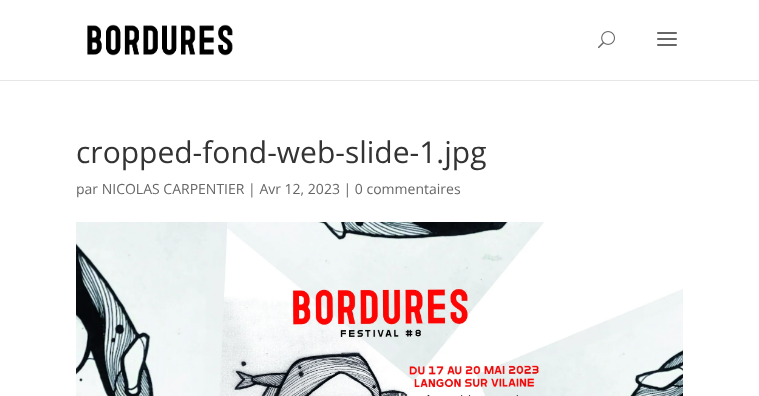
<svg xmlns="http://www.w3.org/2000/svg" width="759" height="396">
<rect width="100%" height="100%" fill="#fff"/>
<rect y="80" width="759" height="1" fill="#e6e6e6"/>
<image x="87" y="24" width="146" height="32" href="media/1.png"/>
<image x="598" y="31" width="17" height="18" href="media/2.png"/>
<image x="657" y="32" width="20" height="14" href="media/3.png"/>
<text x="76" y="163" style="font-family:Open Sans;font-size:30px;fill:#333">cropped-fond-web-slide-1.jpg</text>
<text x="76" y="194" style="font-family:Open Sans;font-size:14px;fill:#666">par NICOLAS CARPENTIER | Avr 12, 2023 | 0 commentaires</text>
<image x="76" y="222" width="607" height="174" href="media/4.png"/>
</svg>
